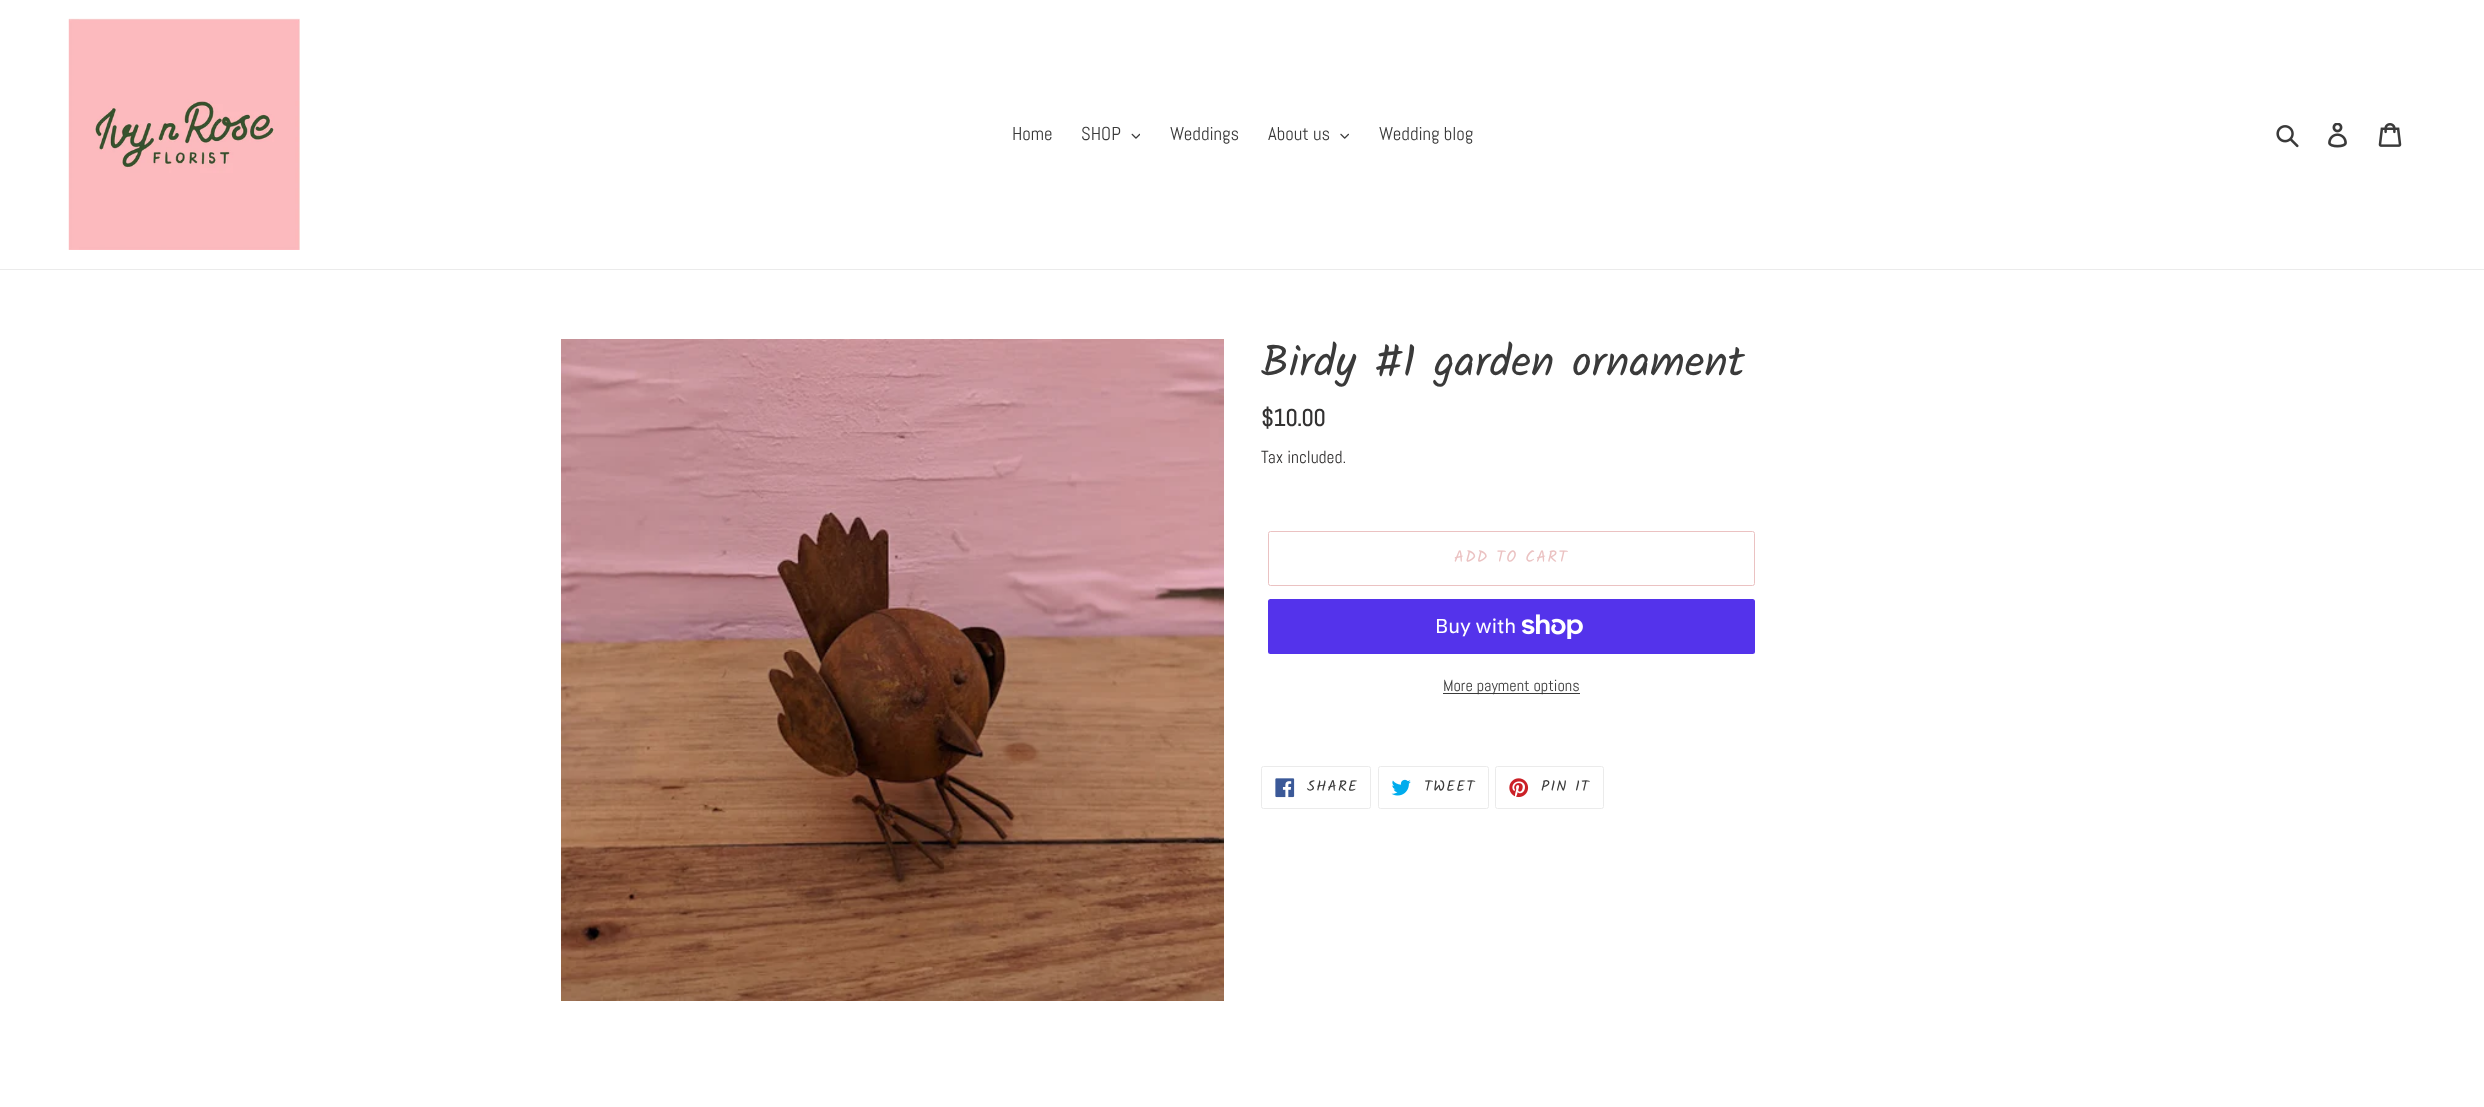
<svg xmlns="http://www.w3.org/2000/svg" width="2484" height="1107">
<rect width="100%" height="100%" fill="#fff"/>
<rect y="269" width="2484" height="1" fill="#ebebeb"/>
<image x="68" y="18" width="232" height="232" href="media/1.png"/>
<text x="1012" y="140" style="font-family:Abel;font-size:18.75px;fill:#3a3a3a">Home</text>
<text x="1081" y="140" style="font-family:Abel;font-size:18.75px;fill:#3a3a3a">SHOP</text>
<image x="1131" y="133" width="9" height="6" href="media/2.png"/>
<text x="1170" y="140" style="font-family:Abel;font-size:18.75px;fill:#3a3a3a">Weddings</text>
<text x="1268" y="140" style="font-family:Abel;font-size:18.75px;fill:#3a3a3a">About us</text>
<image x="1340" y="133" width="9" height="6" href="media/3.png"/>
<text x="1379" y="140" style="font-family:Abel;font-size:18.75px;fill:#3a3a3a">Wedding blog</text>
<image x="2276" y="125" width="23" height="23" href="media/4.png"/>
<image x="2328" y="123" width="19" height="25" href="media/5.png"/>
<image x="2378" y="123" width="24" height="24" href="media/6.png"/>
<image x="561" y="339" width="663" height="662" href="media/7.png"/>
<text x="1261" y="376" style="font-family:Kalam;font-size:43.75px;fill:#3a3a3a">Birdy #1 garden ornament</text>
<text x="1261" y="426" style="font-family:Abel;font-size:23.5px;font-weight:bold;fill:#333232">$10.00</text>
<text x="1261" y="463" style="font-family:Abel;font-size:17.5px;fill:#333232">Tax included.</text>
<rect x="1268.5" y="531.5" width="486" height="54" rx="2" fill="none" stroke="#ebc2c2"/>
<text x="1454" y="562" style="font-family:Kalam;font-size:16.25px;letter-spacing:1.25px;fill:#ebc2c2">ADD TO CART</text>
<rect x="1268" y="599" width="487" height="55" rx="2.5" fill="#5433eb"/>
<text x="1435" y="633" style="font-family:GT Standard;font-size:20px;fill:#fff">Buy with</text>
<image x="1521" y="614" width="62" height="25" href="media/8.png"/>
<rect x="1443" y="693" width="137" height="1" fill="#3a3a3a"/>
<text x="1443" y="691" style="font-family:Abel;font-size:16.25px;fill:#3a3a3a">More payment options</text>
<rect x="1261.5" y="766.5" width="109" height="42" rx="2" fill="none" stroke="#ebebeb"/>
<image x="1275" y="778" width="20" height="20" href="media/9.png"/>
<text x="1307" y="791" style="font-family:Kalam;font-size:15px;letter-spacing:1.25px;fill:#3a3a3a">SHARE</text>
<rect x="1378.5" y="766.5" width="110" height="42" rx="2" fill="none" stroke="#ebebeb"/>
<image x="1391" y="779" width="20" height="17" href="media/10.png"/>
<text x="1424" y="791" style="font-family:Kalam;font-size:15px;letter-spacing:1.25px;fill:#3a3a3a">TWEET</text>
<rect x="1495.5" y="766.5" width="108" height="42" rx="2" fill="none" stroke="#ebebeb"/>
<image x="1509" y="778" width="20" height="20" href="media/11.png"/>
<text x="1541" y="791" style="font-family:Kalam;font-size:15px;letter-spacing:1.25px;fill:#3a3a3a">PIN IT</text>
</svg>
